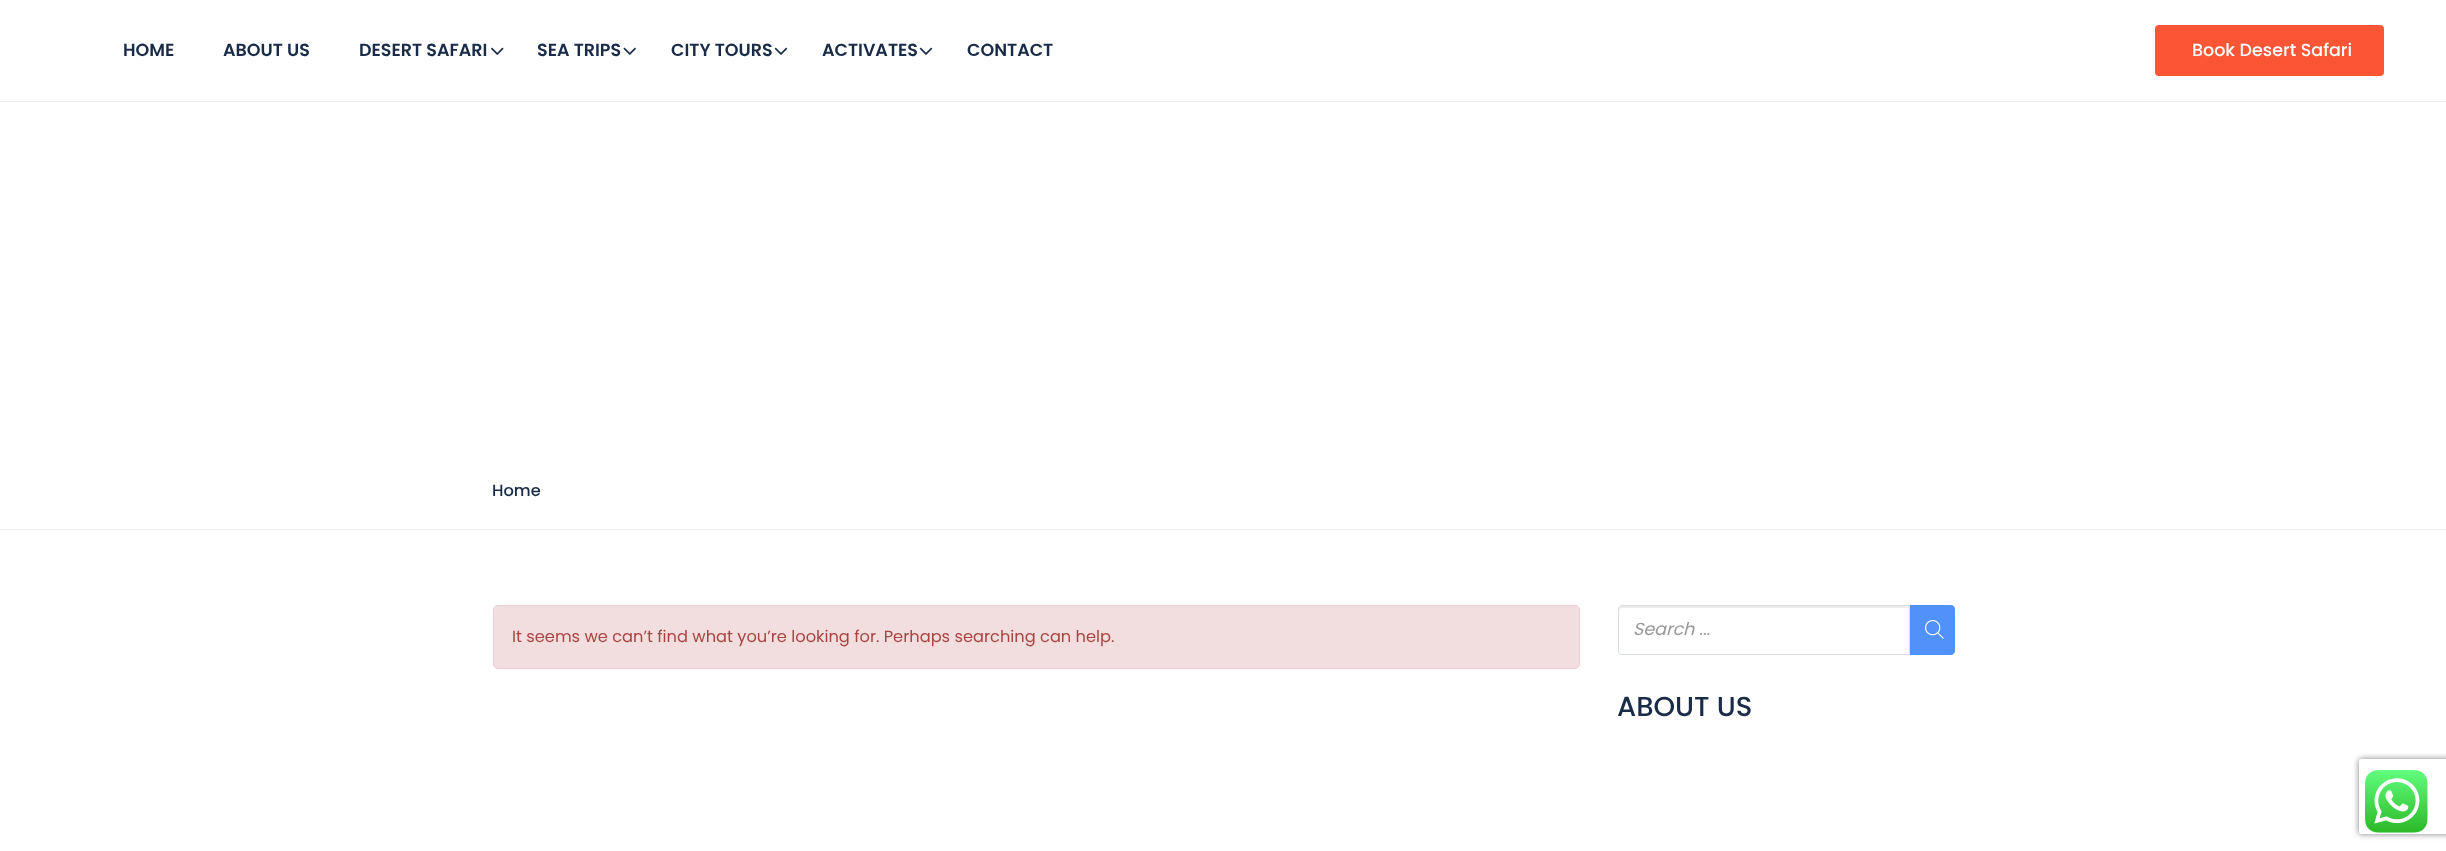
<svg xmlns="http://www.w3.org/2000/svg" width="2446" height="851">
<defs>
<clipPath id="clip1"><path d="M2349 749h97v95h-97zm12.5 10h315c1.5 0 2.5 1 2.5 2.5v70c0 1.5-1 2.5-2.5 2.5h-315c-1.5 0-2.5-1-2.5-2.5v-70c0-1.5 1-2.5 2.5-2.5z" clip-rule="evenodd"/></clipPath>
</defs>
<rect width="100%" height="100%" fill="#fff"/>
<rect y="101" width="2446" height="1" fill="#eaeef3"/>
<text x="123" y="56" style="font-family:Poppins;font-size:17.5px;font-weight:600;fill:#1a2b48">HOME</text>
<text x="223" y="56" style="font-family:Poppins;font-size:17.5px;font-weight:600;fill:#1a2b48">ABOUT US</text>
<text x="359" y="56" style="font-family:Poppins;font-size:17.5px;font-weight:600;fill:#1a2b48">DESERT SAFARI</text>
<image x="491" y="47" width="13" height="8" href="media/1.png"/>
<text x="537" y="56" style="font-family:Poppins;font-size:17.5px;font-weight:600;fill:#1a2b48">SEA TRIPS</text>
<image x="623" y="47" width="13" height="8" href="media/2.png"/>
<text x="671" y="56" style="font-family:Poppins;font-size:17.5px;font-weight:600;fill:#1a2b48">CITY TOURS</text>
<image x="774" y="47" width="14" height="8" href="media/3.png"/>
<text x="822" y="56" style="font-family:Poppins;font-size:17.5px;font-weight:600;fill:#1a2b48">ACTIVATES</text>
<image x="919" y="47" width="14" height="8" href="media/3.png"/>
<text x="967" y="56" style="font-family:Poppins;font-size:17.5px;font-weight:600;fill:#1a2b48">CONTACT</text>
<rect x="2155" y="25" width="229" height="51" rx="4" fill="#fa5636"/>
<text x="2192" y="56" style="font-family:Poppins;font-size:17.5px;font-weight:500;fill:#fff">Book Desert Safari</text>
<rect y="529" width="2446" height="1" fill="#eaeef3"/>
<text x="492" y="496" style="font-family:Poppins;font-size:16.25px;font-weight:500;fill:#1a2b48">Home</text>
<rect x="493.5" y="605.5" width="1086" height="63" rx="4.5" fill="#f2dede" stroke="#ebccd1"/>
<text x="512" y="642" style="font-family:Poppins;font-size:16.25px;fill:#a94442">It seems we can’t find what you’re looking for. Perhaps searching can help.</text>
<path d="M1621 608h288v-2h-287c-3 0-3 2-3 4c0-1 1-2 2-2z" fill="#ececec"/>
<path d="M1622 605.5h287.5v49h-287.5c-2 0-3.5-1.5-3.5-3.5v-42c0-2 1.5-3.5 3.5-3.5z" fill="none" stroke="#d7dce3"/>
<text x="1633" y="635" style="font-family:Poppins;font-size:17.5px;font-style:italic;fill:#999">Search ...</text>
<path d="M1910 605h41c2 0 4 2 4 4v42c0 2-2 4-4 4h-41z" fill="#5191fa"/>
<image x="1925" y="620" width="19" height="19" href="media/4.png"/>
<text x="1617" y="716" style="font-family:Poppins;font-size:27.5px;font-weight:500;fill:#1a2b48">ABOUT US</text>
<g clip-path="url(#clip1)">
<rect x="2359" y="759" width="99" height="75" rx="2.5" fill="#808080" filter="blur(3px)"/>
</g>
<image x="2365" y="770" width="63" height="63" href="media/5.png"/>
</svg>
